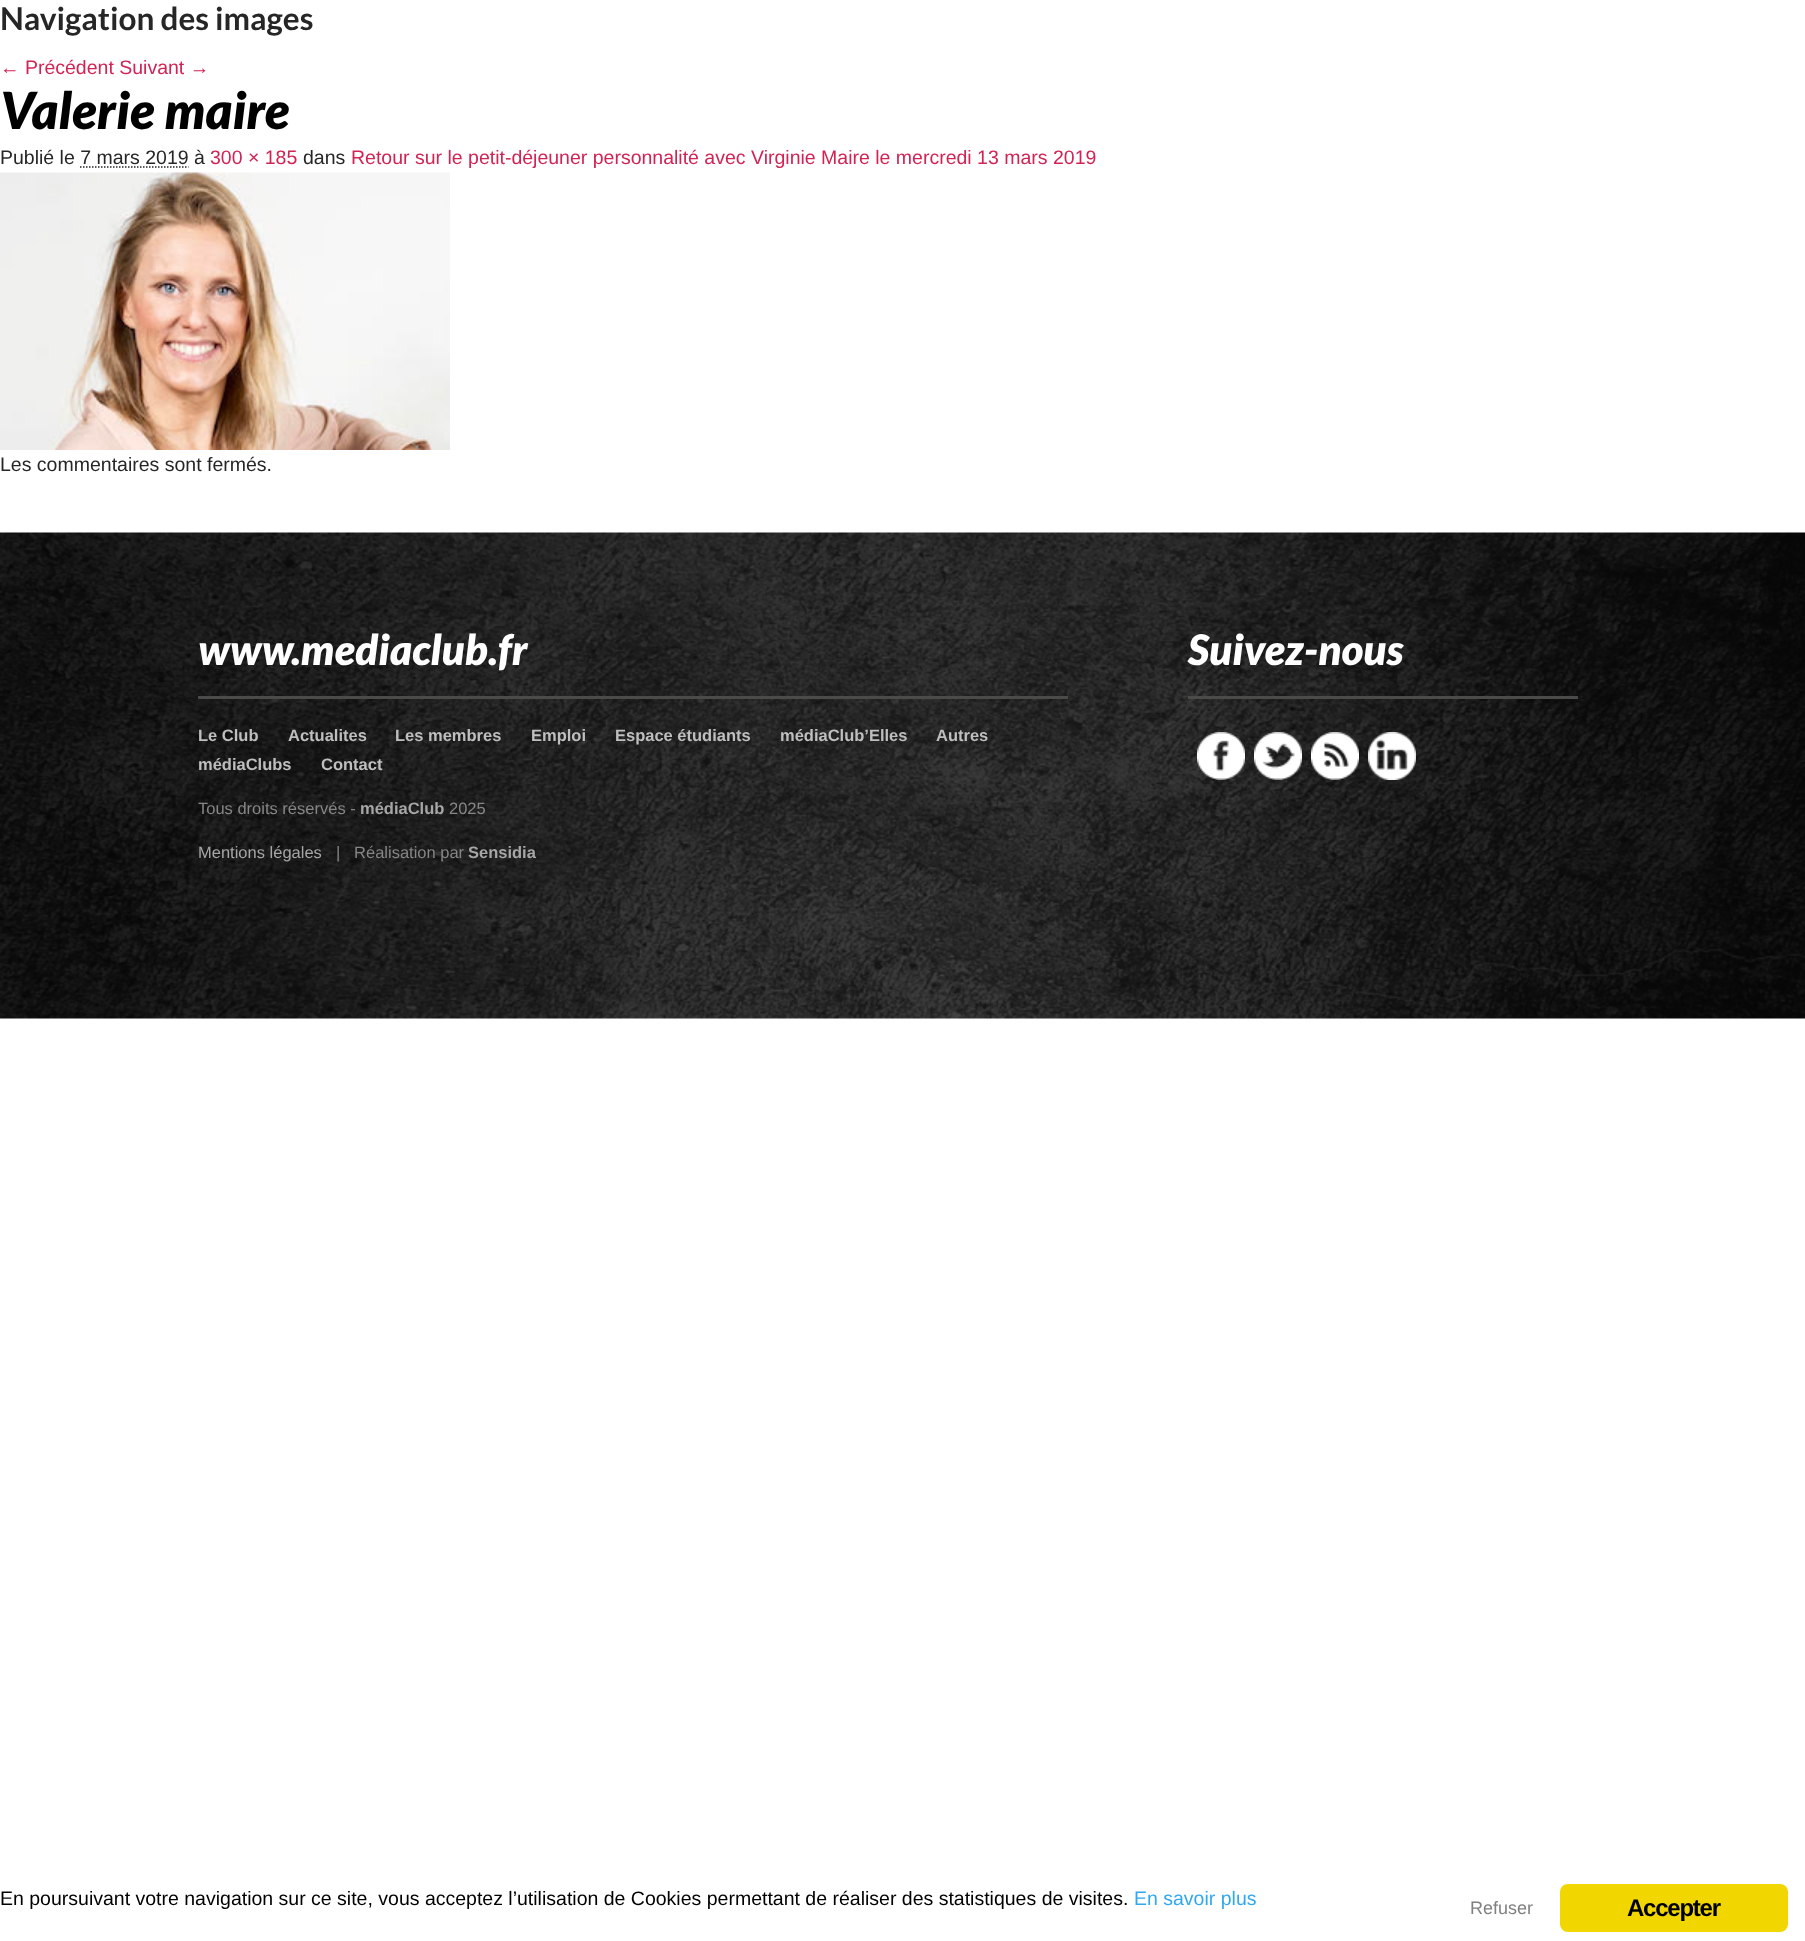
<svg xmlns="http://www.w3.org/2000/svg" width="1805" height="1941">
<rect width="100%" height="100%" fill="#fff"/>
<text x="0" y="30" style="font-family:Lato;font-size:31.5px;font-weight:bold;fill:#262626">Navigation des images</text>
<text x="0" y="74" style="font-family:Liberation Sans;font-size:19.5px;fill:#d12354">← Précédent Suivant →</text>
<text x="0" y="129" style="font-family:Lato;font-size:51px;font-weight:900;font-style:italic;fill:#000">Valerie maire</text>
<text x="0" y="164" style="font-family:Liberation Sans;font-size:19.5px;fill:#262626">Publié le 7 mars 2019 à</text>
<text x="210" y="164" style="font-family:Liberation Sans;font-size:19.5px;fill:#d12354">300 × 185</text>
<text x="303" y="164" style="font-family:Liberation Sans;font-size:19.5px;fill:#262626">dans</text>
<text x="351" y="164" style="font-family:Liberation Sans;font-size:19.5px;fill:#d12354">Retour sur le petit-déjeuner personnalité avec Virginie Maire le mercredi 13 mars 2019</text>
<path d="M80 167h108.5" fill="none" stroke="#262626" stroke-width="1.5" stroke-dasharray="1.5 1.5"/>
<image x="0" y="172" width="450" height="278" href="media/1.png"/>
<text x="0" y="471" style="font-family:Liberation Sans;font-size:19.5px;fill:#262626">Les commentaires sont fermés.</text>
<image x="0" y="532" width="1805" height="487" href="media/2.png"/>
<rect x="198" y="696" width="870" height="3" fill="#4b4b49"/>
<text x="198" y="665" style="font-family:Lato;font-size:42px;font-weight:900;font-style:italic;fill:#fff">www.mediaclub.fr</text>
<text x="198" y="741" style="font-family:Liberation Sans;font-size:16.5px;font-weight:bold;fill:#bfbfbf">Le Club</text>
<text x="288" y="741" style="font-family:Liberation Sans;font-size:16.5px;font-weight:bold;fill:#bfbfbf">Actualites</text>
<text x="395" y="741" style="font-family:Liberation Sans;font-size:16.5px;font-weight:bold;fill:#bfbfbf">Les membres</text>
<text x="531" y="741" style="font-family:Liberation Sans;font-size:16.5px;font-weight:bold;fill:#bfbfbf">Emploi</text>
<text x="615" y="741" style="font-family:Liberation Sans;font-size:16.5px;font-weight:bold;fill:#bfbfbf">Espace étudiants</text>
<text x="780" y="741" style="font-family:Liberation Sans;font-size:16.5px;font-weight:bold;fill:#bfbfbf">médiaClub’Elles</text>
<text x="936" y="741" style="font-family:Liberation Sans;font-size:16.5px;font-weight:bold;fill:#bfbfbf">Autres</text>
<text x="198" y="770" style="font-family:Liberation Sans;font-size:16.5px;font-weight:bold;fill:#bfbfbf">médiaClubs</text>
<text x="321" y="770" style="font-family:Liberation Sans;font-size:16.5px;font-weight:bold;fill:#bfbfbf">Contact</text>
<text x="198" y="814" style="font-family:Liberation Sans;font-size:16.5px;fill:#868686">Tous droits réservés -</text>
<text x="360" y="814" style="font-family:Liberation Sans;font-size:16.5px;font-weight:bold;fill:#a6a6a6">médiaClub</text>
<text x="449" y="814" style="font-family:Liberation Sans;font-size:16.5px;fill:#868686">2025</text>
<text x="198" y="858" style="font-family:Liberation Sans;font-size:16.5px;fill:#a6a6a6">Mentions légales</text>
<text x="336" y="858" style="font-family:Liberation Sans;font-size:16.5px;fill:#868686" xml:space="preserve">|   Réalisation par</text>
<text x="468" y="858" style="font-family:Liberation Sans;font-size:16.5px;font-weight:bold;fill:#a6a6a6">Sensidia</text>
<rect x="1188" y="696" width="390" height="3" fill="#4b4b49"/>
<text x="1188" y="665" style="font-family:Lato;font-size:42px;font-weight:900;font-style:italic;fill:#fff">Suivez-nous</text>
<image x="1197" y="732" width="48" height="48" href="media/3.png"/>
<image x="1254" y="732" width="48" height="48" href="media/4.png"/>
<image x="1311" y="732" width="48" height="48" href="media/5.png"/>
<image x="1368" y="732" width="48" height="48" href="media/6.png"/>
<text x="0" y="1905" style="font-family:Liberation Sans;font-size:19.5px;fill:#000">En poursuivant votre navigation sur ce site, vous acceptez l’utilisation de Cookies permettant de réaliser des statistiques de visites.</text>
<text x="1134" y="1905" style="font-family:Liberation Sans;font-size:19.5px;fill:#31a8f0">En savoir plus</text>
<text x="1470" y="1914" style="font-family:Liberation Sans;font-size:18px;fill:#808080">Refuser</text>
<rect x="1560" y="1884" width="228" height="48" rx="8" fill="#f1d600"/>
<text x="1627" y="1916" style="font-family:Liberation Sans;font-size:24px;font-weight:bold;letter-spacing:-1.25px;fill:#000">Accepter</text>
</svg>
